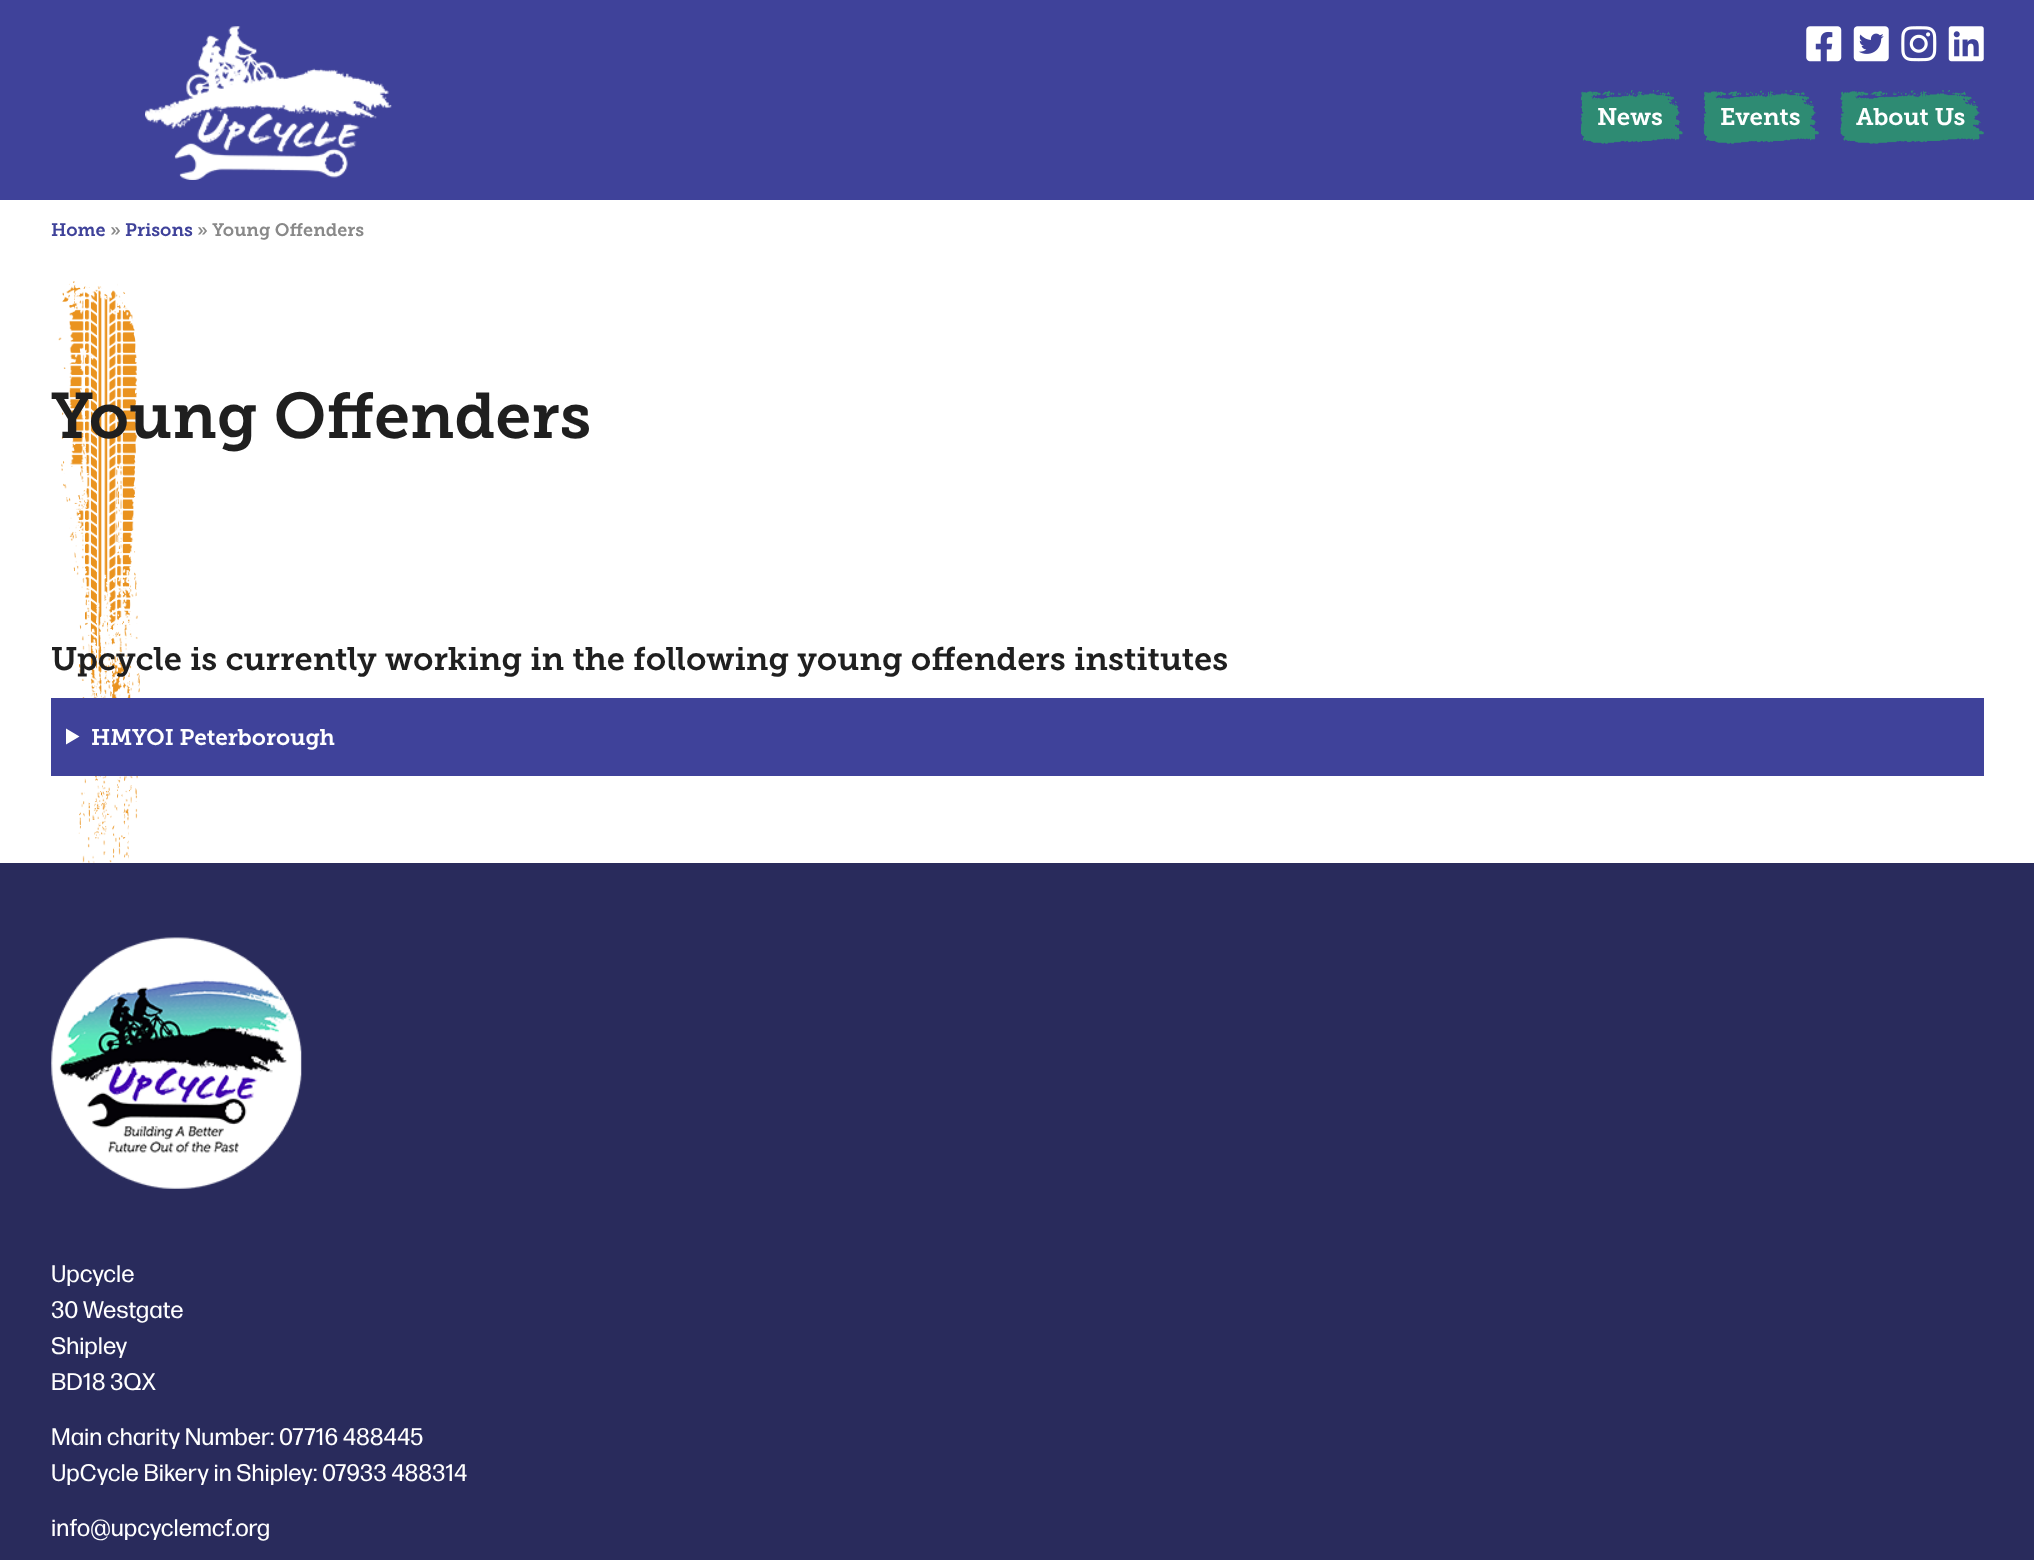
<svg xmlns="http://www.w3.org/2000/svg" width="2034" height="1560">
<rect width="100%" height="100%" fill="#fff"/>
<rect width="2034" height="200" fill="#3f429a"/>
<image x="145" y="26" width="247" height="154" href="media/1.png"/>
<image x="1806" y="26" width="36" height="36" href="media/2.png"/>
<image x="1853" y="26" width="36" height="36" href="media/3.png"/>
<image x="1901" y="26" width="36" height="36" href="media/4.png"/>
<image x="1948" y="26" width="36" height="36" href="media/5.png"/>
<image x="1581" y="90" width="102" height="54" href="media/6.png"/>
<text x="1597" y="125" style="font-family:Museo Slab;font-size:24px;font-weight:bold;fill:#fff">News</text>
<image x="1701" y="90" width="118" height="54" href="media/7.png"/>
<text x="1720" y="125" style="font-family:Museo Slab;font-size:24px;font-weight:bold;fill:#fff">Events</text>
<image x="1837" y="90" width="147" height="54" href="media/8.png"/>
<text x="1856" y="125" style="font-family:Museo Slab;font-size:24px;font-weight:bold;fill:#fff">About Us</text>
<image x="58" y="281" width="82" height="582" href="media/9.png"/>
<text x="51" y="236" style="font-family:Museo Slab;font-size:18px;font-weight:bold;fill:#3f429a">Home</text>
<text x="110" y="236" style="font-family:Museo Slab;font-size:18px;font-weight:bold;fill:#898989">»</text>
<text x="125" y="236" style="font-family:Museo Slab;font-size:18px;font-weight:bold;fill:#3f429a">Prisons</text>
<text x="197" y="236" style="font-family:Museo Slab;font-size:18px;font-weight:bold;fill:#898989">» Young Offenders</text>
<text x="51" y="438" style="font-family:Museo Slab;font-size:64px;font-weight:bold;fill:#1f1f1f">Young Offenders</text>
<text x="51" y="670" style="font-family:Museo Slab;font-size:32.5px;font-weight:bold;fill:#1f1f1f">Upcycle is currently working in the following young offenders institutes</text>
<rect x="51" y="698" width="1933" height="78" fill="#3f429a"/>
<path d="M66 728.5l13.5 8l-13.5 8z" fill="#fff"/>
<text x="91" y="745" style="font-family:Museo Slab;font-size:22.5px;font-weight:bold;fill:#fff">HMYOI Peterborough</text>
<rect y="863" width="2034" height="697" fill="#292b5c"/>
<image x="51" y="937" width="251" height="252" href="media/10.png"/>
<text x="51" y="1282" style="font-family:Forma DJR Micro;font-size:24px;fill:#fff">Upcycle</text>
<text x="51" y="1318" style="font-family:Forma DJR Micro;font-size:24px;fill:#fff">30 Westgate</text>
<text x="51" y="1354" style="font-family:Forma DJR Micro;font-size:24px;fill:#fff">Shipley</text>
<text x="51" y="1390" style="font-family:Forma DJR Micro;font-size:24px;fill:#fff">BD18 3QX</text>
<text x="51" y="1445" style="font-family:Forma DJR Micro;font-size:24px;fill:#fff">Main charity Number: 07716 488445</text>
<text x="51" y="1481" style="font-family:Forma DJR Micro;font-size:24px;fill:#fff">UpCycle Bikery in Shipley: 07933 488314</text>
<text x="51" y="1536" style="font-family:Forma DJR Micro;font-size:24px;fill:#fff">info@upcyclemcf.org</text>
</svg>
